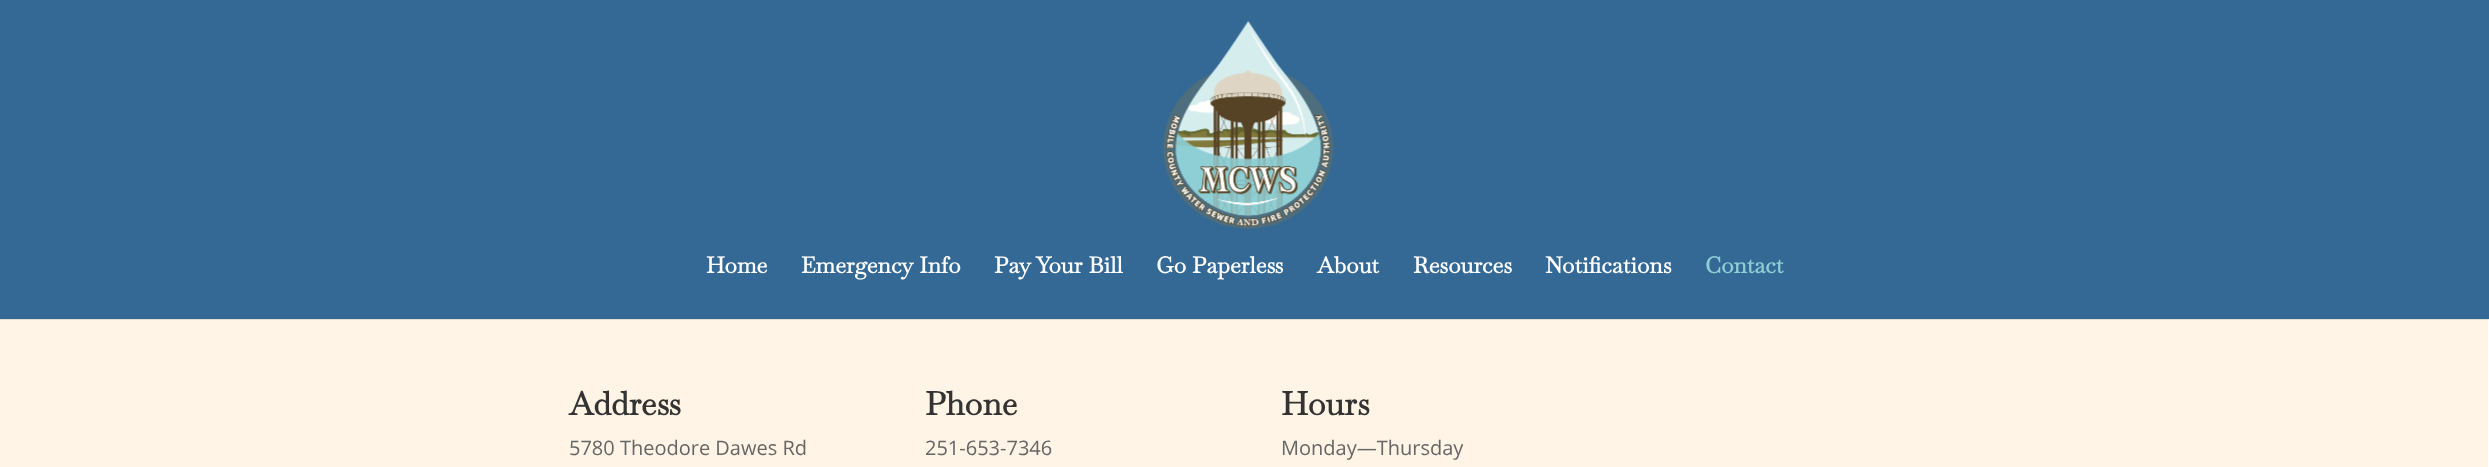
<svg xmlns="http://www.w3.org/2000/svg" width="2489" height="467">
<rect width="100%" height="100%" fill="#fff"/>
<rect x="2488" y="319" width="1" height="1" fill="#e6e6e6"/>
<rect width="2489" height="319" fill="#346995"/>
<image x="1162" y="21" width="172" height="209" href="media/1.png"/>
<text x="706" y="273" style="font-family:Baskervville;font-size:22.5px;font-weight:bold;fill:#fff">Home</text>
<text x="801" y="273" style="font-family:Baskervville;font-size:22.5px;font-weight:bold;fill:#fff">Emergency Info</text>
<text x="994" y="273" style="font-family:Baskervville;font-size:22.5px;font-weight:bold;fill:#fff">Pay Your Bill</text>
<text x="1156" y="273" style="font-family:Baskervville;font-size:22.5px;font-weight:bold;fill:#fff">Go Paperless</text>
<text x="1317" y="273" style="font-family:Baskervville;font-size:22.5px;font-weight:bold;fill:#fff">About</text>
<text x="1413" y="273" style="font-family:Baskervville;font-size:22.5px;font-weight:bold;fill:#fff">Resources</text>
<text x="1545" y="273" style="font-family:Baskervville;font-size:22.5px;font-weight:bold;fill:#fff">Notifications</text>
<text x="1705" y="273" style="font-family:Baskervville;font-size:22.5px;font-weight:bold;fill:#8dcfd5">Contact</text>
<rect y="320" width="2488" height="147" fill="#fff4e5"/>
<rect y="319" width="2488" height="1" fill="#e6dcce"/>
<text x="569" y="415" style="font-family:Baskervville;font-size:32.5px;font-weight:bold;fill:#333">Address</text>
<text x="569" y="455" style="font-family:Open Sans;font-size:20px;fill:#666">5780 Theodore Dawes Rd</text>
<text x="925" y="415" style="font-family:Baskervville;font-size:32.5px;font-weight:bold;fill:#333">Phone</text>
<text x="925" y="455" style="font-family:Open Sans;font-size:20px;fill:#666">251-653-7346</text>
<text x="1281" y="415" style="font-family:Baskervville;font-size:32.5px;font-weight:bold;fill:#333">Hours</text>
<text x="1281" y="455" style="font-family:Open Sans;font-size:20px;fill:#666">Monday—Thursday</text>
</svg>
